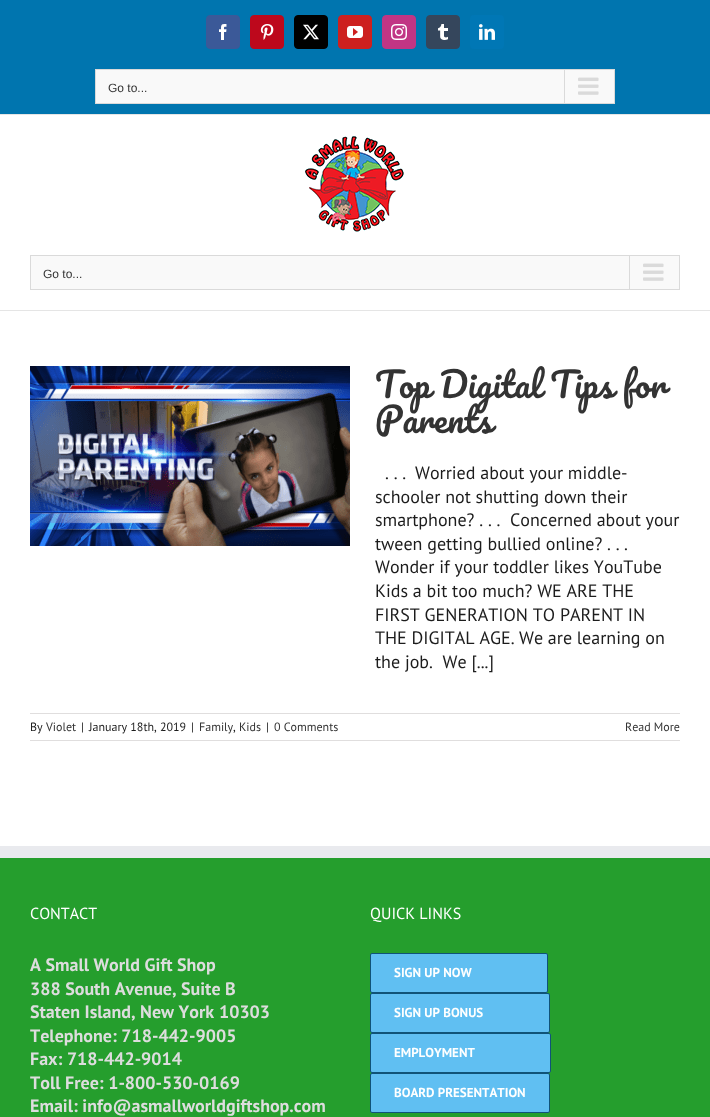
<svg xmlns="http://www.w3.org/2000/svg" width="710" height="1117">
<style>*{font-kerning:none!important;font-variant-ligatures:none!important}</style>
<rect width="100%" height="100%" fill="#fff"/>
<rect width="710" height="114" fill="#0075af"/>
<rect y="114" width="710" height="1" fill="#e5e5e5"/>
<rect x="206.5" y="15.5" width="33" height="33" rx="3.5" fill="#3b5998" stroke="#3b5998"/>
<image x="219" y="24" width="8" height="16" href="media/1.png"/>
<rect x="250.5" y="15.5" width="33" height="33" rx="3.5" fill="#bd081c" stroke="#bd081c"/>
<image x="260" y="24" width="14" height="16" href="media/2.png"/>
<rect x="294.5" y="15.5" width="33" height="33" rx="3.5" fill="#000" stroke="#000"/>
<image x="303" y="24" width="16" height="16" href="media/3.png"/>
<rect x="338.5" y="15.5" width="33" height="33" rx="3.5" fill="#cd201f" stroke="#cd201f"/>
<image x="347" y="26" width="16" height="12" href="media/4.png"/>
<rect x="382.5" y="15.5" width="33" height="33" rx="3.5" fill="#c13584" stroke="#c13584"/>
<image x="391" y="24" width="16" height="16" href="media/5.png"/>
<rect x="426.5" y="15.5" width="33" height="33" rx="3.5" fill="#35465c" stroke="#35465c"/>
<image x="438" y="24" width="10" height="16" href="media/6.png"/>
<rect x="470" y="15" width="34" height="34" rx="4" fill="#0077b5"/>
<image x="479" y="24" width="16" height="16" href="media/7.png"/>
<rect x="95.5" y="69.5" width="519" height="34" fill="#f9f9f9" stroke="#dadada"/>
<text x="108" y="92" style="font-family:Liberation Sans;font-size:12px;fill:#333">Go to...</text>
<rect x="564" y="70" width="1" height="33" fill="#dadada"/>
<image x="578" y="77" width="21" height="18" href="media/8.png"/>
<rect y="310" width="710" height="1" fill="#e5e5e5"/>
<image x="305" y="136" width="99" height="96" href="media/9.png"/>
<rect x="30.5" y="255.5" width="649" height="34" fill="#f9f9f9" stroke="#dadada"/>
<text x="43" y="278" style="font-family:Liberation Sans;font-size:12px;fill:#333">Go to...</text>
<rect x="629" y="256" width="1" height="33" fill="#dadada"/>
<image x="643" y="263" width="21" height="18" href="media/8.png"/>
<image x="30" y="366" width="320" height="180" href="media/10.png"/>
<text x="375" y="398" style="font-family:Pacifico;font-size:34px;fill:#333">Top Digital Tips for</text>
<text x="375" y="433" style="font-family:Pacifico;font-size:34px;fill:#333">Parents</text>
<text x="385" y="479" style="font-family:PT Sans;font-size:18px;fill:#1c1c1c">. . .</text>
<text x="415" y="479" style="font-family:PT Sans;font-size:18px;fill:#1c1c1c">Worried about your middle-</text>
<text x="375" y="503" style="font-family:PT Sans;font-size:18px;fill:#1c1c1c">schooler not shutting down their</text>
<text x="375" y="526" style="font-family:PT Sans;font-size:18px;fill:#1c1c1c">smartphone? . . .</text>
<text x="510" y="526" style="font-family:PT Sans;font-size:18px;fill:#1c1c1c">Concerned about your</text>
<text x="375" y="550" style="font-family:PT Sans;font-size:18px;fill:#1c1c1c">tween getting bullied online? . .</text>
<text x="624" y="550" style="font-family:PT Sans;font-size:18px;fill:#1c1c1c">.</text>
<text x="375" y="573" style="font-family:PT Sans;font-size:18px;fill:#1c1c1c">Wonder if your toddler likes YouTube</text>
<text x="375" y="597" style="font-family:PT Sans;font-size:18px;fill:#1c1c1c">Kids a bit too much? WE ARE THE</text>
<text x="375" y="621" style="font-family:PT Sans;font-size:18px;fill:#1c1c1c">FIRST GENERATION TO</text>
<text x="560" y="621" style="font-family:PT Sans;font-size:18px;fill:#1c1c1c">PARENT IN</text>
<text x="375" y="644" style="font-family:PT Sans;font-size:18px;fill:#1c1c1c">THE DIGITAL AGE.</text>
<text x="519" y="644" style="font-family:PT Sans;font-size:18px;fill:#1c1c1c">We are learning on</text>
<text x="375" y="668" style="font-family:PT Sans;font-size:18px;fill:#1c1c1c" xml:space="preserve">the job.  We [...]</text>
<rect x="30" y="713" width="650" height="1" fill="#e0dede"/>
<rect x="30" y="740" width="650" height="1" fill="#e0dede"/>
<text x="30" y="731" style="font-family:PT Sans;font-size:12px;fill:#1c1c1c">By</text>
<text x="46" y="731" style="font-family:PT Sans;font-size:12px;fill:#333">Violet</text>
<text x="81" y="731" style="font-family:PT Sans;font-size:12px;fill:#1c1c1c">|</text>
<text x="89" y="731" style="font-family:PT Sans;font-size:12px;fill:#1c1c1c">January 18th, 2019</text>
<text x="191" y="731" style="font-family:PT Sans;font-size:12px;fill:#1c1c1c">|</text>
<text x="199" y="731" style="font-family:PT Sans;font-size:12px;fill:#333">Family</text>
<text x="233" y="731" style="font-family:PT Sans;font-size:12px;fill:#1c1c1c">,</text>
<text x="239" y="731" style="font-family:PT Sans;font-size:12px;fill:#333">Kids</text>
<text x="266" y="731" style="font-family:PT Sans;font-size:12px;fill:#1c1c1c">|</text>
<text x="274" y="731" style="font-family:PT Sans;font-size:12px;fill:#333">0 Comments</text>
<text x="625" y="731" style="font-family:PT Sans;font-size:12px;fill:#333">Read More</text>
<rect y="858" width="710" height="259" fill="#259e2d"/>
<rect y="846" width="710" height="12" fill="#e9eaee"/>
<text x="30" y="919" style="font-family:PT Sans;font-size:16px;fill:#fff">CONTACT</text>
<text x="30" y="971" style="font-family:PT Sans;font-size:18px;font-weight:bold;fill:#ddd">A Small World Gift Shop</text>
<text x="30" y="995" style="font-family:PT Sans;font-size:18px;font-weight:bold;fill:#ddd">388 South Avenue, Suite B</text>
<text x="30" y="1018" style="font-family:PT Sans;font-size:18px;font-weight:bold;fill:#ddd">Staten Island, New York</text>
<text x="219" y="1018" style="font-family:PT Sans;font-size:18px;font-weight:bold;fill:#ddd">10303</text>
<text x="30" y="1042" style="font-family:PT Sans;font-size:18px;font-weight:bold;fill:#ddd">Telephone: 718-442-9005</text>
<text x="30" y="1065" style="font-family:PT Sans;font-size:18px;font-weight:bold;fill:#ddd">Fax: 718-442-9014</text>
<text x="30" y="1089" style="font-family:PT Sans;font-size:18px;font-weight:bold;fill:#ddd">Toll Free: 1-800-530-0169</text>
<text x="30" y="1112" style="font-family:PT Sans;font-size:18px;font-weight:bold;fill:#ddd">Email: info@asmallworldgiftshop.com</text>
<text x="370" y="919" style="font-family:PT Sans;font-size:16px;fill:#fff">QUICK LINKS</text>
<rect x="370.5" y="953.5" width="177" height="39" rx="1.5" fill="#60bff2" stroke="#105378"/>
<text x="394" y="977" style="font-family:PT Sans;font-size:13px;font-weight:bold;fill:#fff">SIGN UP NOW</text>
<rect x="370.5" y="993.5" width="179" height="39" rx="1.5" fill="#60bff2" stroke="#105378"/>
<text x="394" y="1017" style="font-family:PT Sans;font-size:13px;font-weight:bold;fill:#fff">SIGN UP BONUS</text>
<rect x="370.5" y="1033.5" width="180" height="39" rx="1.5" fill="#60bff2" stroke="#105378"/>
<text x="394" y="1057" style="font-family:PT Sans;font-size:13px;font-weight:bold;fill:#fff">EMPLOYMENT</text>
<rect x="370.5" y="1073.5" width="179" height="39" rx="1.5" fill="#60bff2" stroke="#105378"/>
<text x="394" y="1097" style="font-family:PT Sans;font-size:13px;font-weight:bold;fill:#fff">BOARD PRESENTATION</text>
</svg>
